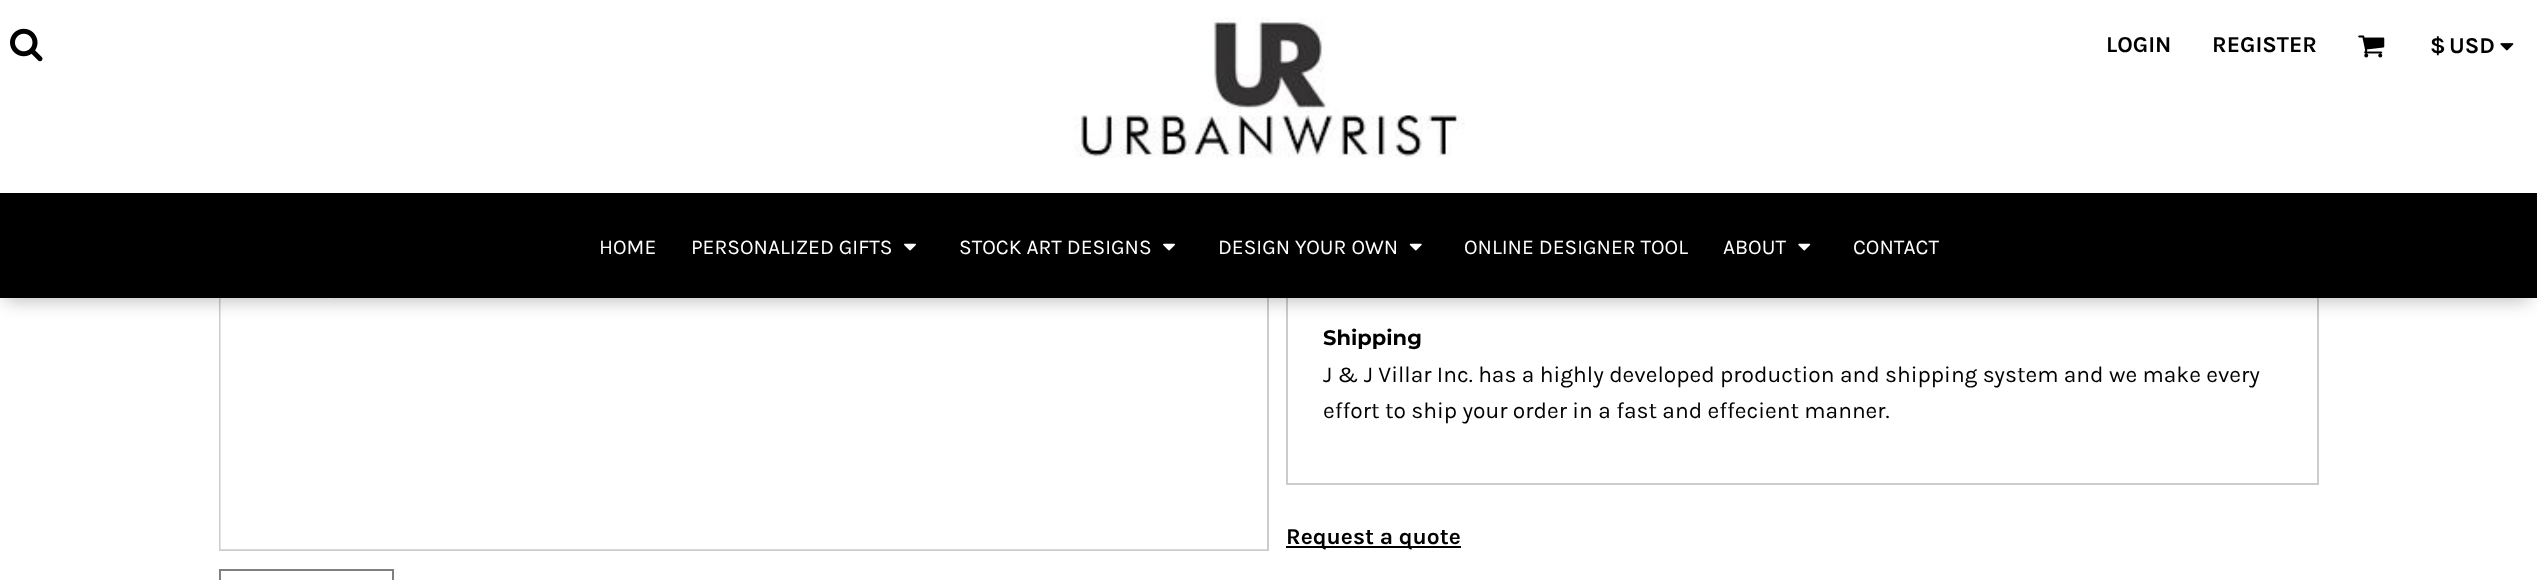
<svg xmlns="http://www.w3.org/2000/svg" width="2537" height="580">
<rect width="100%" height="100%" fill="#fff"/>
<rect x="220" y="-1" width="1048" height="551" fill="none" stroke="#ccc" stroke-width="2"/>
<image x="220" y="298" width="1047" height="252" href="media/8.png"/>
<rect x="1287" y="292" width="1031" height="192" fill="none" stroke="#ccc" stroke-width="2"/>
<rect x="5" y="18" width="2524" height="283" fill="#00000040" filter="blur(9px)"/>
<rect width="2537" height="193" fill="#fff"/>
<image x="10" y="28" width="33" height="34" href="media/1.png"/>
<image x="1073" y="17" width="392" height="141" href="media/2.png"/>
<text x="2106" y="52" style="font-family:Karla;font-size:22.75px;font-weight:bold;fill:#000">LOGIN</text>
<text x="2212" y="52" style="font-family:Karla;font-size:22.75px;font-weight:bold;fill:#000">REGISTER</text>
<image x="2358" y="35" width="27" height="23" href="media/3.png"/>
<text x="2430" y="53" style="font-family:Karla;font-size:22.75px;font-weight:bold;fill:#000">$</text>
<text x="2449" y="53" style="font-family:Karla;font-size:22.75px;font-weight:bold;fill:#000">USD</text>
<image x="2500" y="43" width="14" height="8" href="media/4.png"/>
<rect y="193" width="2537" height="105" fill="#000"/>
<text x="599" y="254" style="font-family:Karla;font-size:21px;fill:#fff">HOME</text>
<text x="691" y="254" style="font-family:Karla;font-size:21px;fill:#fff">PERSONALIZED GIFTS</text>
<image x="904" y="243" width="12" height="8" href="media/5.png"/>
<text x="959" y="254" style="font-family:Karla;font-size:21px;fill:#fff">STOCK ART DESIGNS</text>
<image x="1163" y="243" width="12" height="8" href="media/5.png"/>
<text x="1218" y="254" style="font-family:Karla;font-size:21px;fill:#fff">DESIGN YOUR OWN</text>
<image x="1409" y="243" width="13" height="8" href="media/6.png"/>
<text x="1464" y="254" style="font-family:Karla;font-size:21px;fill:#fff">ONLINE DESIGNER TOOL</text>
<text x="1723" y="254" style="font-family:Karla;font-size:21px;fill:#fff">ABOUT</text>
<image x="1798" y="243" width="13" height="8" href="media/7.png"/>
<text x="1853" y="254" style="font-family:Karla;font-size:21px;fill:#fff">CONTACT</text>
<rect x="220" y="570" width="173" height="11" fill="none" stroke="#808080" stroke-width="2"/>
<text x="1323" y="345" style="font-family:Montserrat;font-size:21px;font-weight:100;fill:#000">Shipping</text>
<text x="1323" y="382" style="font-family:Karla;font-size:22.75px;fill:#000">J &amp; J Villar Inc. has a highly developed production and shipping system and we make every</text>
<text x="1323" y="418" style="font-family:Karla;font-size:22.75px;fill:#000">effort to ship your order in a fast and effecient manner.</text>
<rect x="1286" y="546" width="175" height="2" fill="#000"/>
<text x="1286" y="544" style="font-family:Karla;font-size:22.75px;font-weight:bold;fill:#000">Request a quote</text>
</svg>
